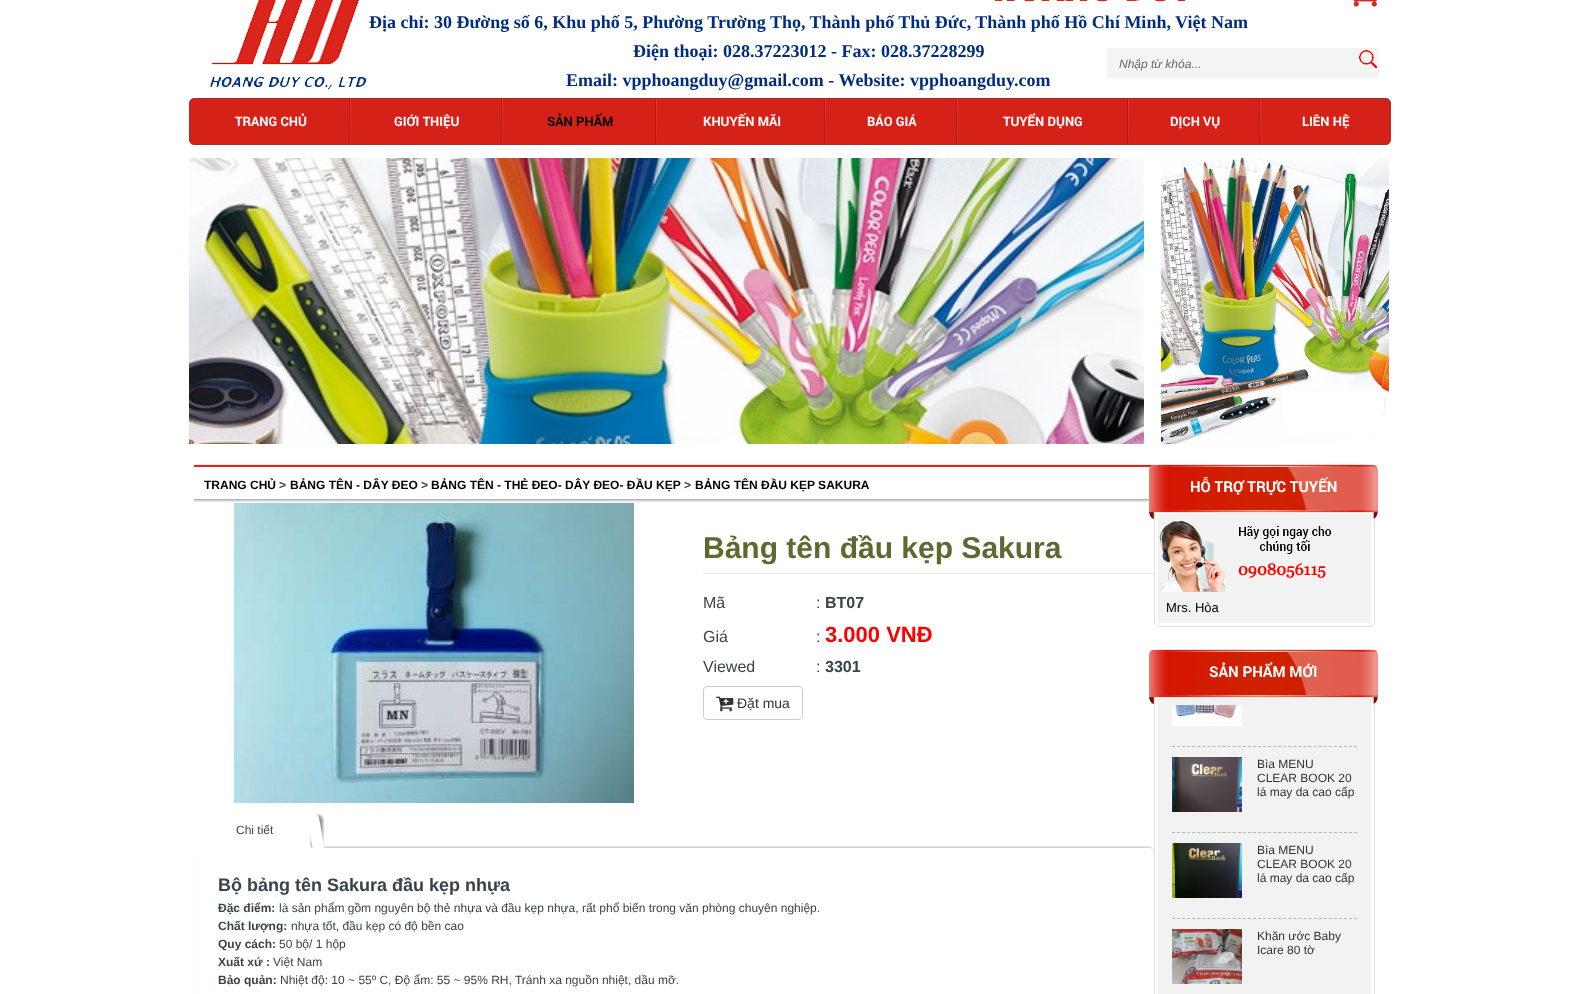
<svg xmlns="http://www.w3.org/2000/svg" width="1578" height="994">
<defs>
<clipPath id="clip1"><rect x="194" y="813" width="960" height="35"/></clipPath>
</defs>
<rect width="100%" height="100%" fill="#fff"/>
<image x="210" y="0" width="976" height="90" href="media/1.png"/>
<image x="1353" y="0" width="24" height="7" href="media/2.png"/>
<text x="369" y="28" style="font-family:Liberation Serif;font-size:18px;font-weight:bold;fill:#002d7f">Địa chỉ: 30 Đường số 6, Khu phố 5, Phường Trường Thọ, Thành phố Thủ Đức, Thành phố Hồ Chí Minh, Việt Nam</text>
<text x="633" y="57" style="font-family:Liberation Serif;font-size:18px;font-weight:bold;fill:#002d7f">Điện thoại: 028.37223012 - Fax: 028.37228299</text>
<text x="566" y="86" style="font-family:Liberation Serif;font-size:18px;font-weight:bold;fill:#002d7f">Email: vpphoangduy@gmail.com - Website: vpphoangduy.com</text>
<rect x="1107" y="48" width="272" height="30" fill="#f3f5f3"/>
<text x="1119" y="68" style="font-family:Liberation Sans;font-size:12px;font-style:italic;fill:#666">Nhập từ khóa...</text>
<image x="1359" y="50" width="18" height="18" href="media/3.png"/>
<rect x="189.5" y="98.5" width="1201" height="46" rx="4.5" fill="#d62119" stroke="#933"/>
<image x="349" y="99" width="2" height="45" href="media/4.png"/>
<text x="235" y="126" style="font-family:Roboto;font-size:13px;font-weight:bold;fill:#fff">TRANG CHỦ</text>
<image x="501" y="99" width="2" height="45" href="media/4.png"/>
<text x="394" y="126" style="font-family:Roboto;font-size:13px;font-weight:bold;fill:#fff">GIỚI THIỆU</text>
<image x="655" y="99" width="2" height="45" href="media/4.png"/>
<text x="547" y="126" style="font-family:Roboto;font-size:13px;font-weight:bold;fill:#000">SẢN PHẨM</text>
<image x="824" y="99" width="2" height="45" href="media/4.png"/>
<text x="703" y="126" style="font-family:Roboto;font-size:13px;font-weight:bold;fill:#fff">KHUYẾN MÃI</text>
<image x="956" y="99" width="2" height="45" href="media/4.png"/>
<text x="867" y="126" style="font-family:Roboto;font-size:13px;font-weight:bold;fill:#fff">BÁO GIÁ</text>
<image x="1127" y="99" width="2" height="45" href="media/4.png"/>
<text x="1003" y="126" style="font-family:Roboto;font-size:13px;font-weight:bold;fill:#fff">TUYỂN DỤNG</text>
<image x="1259" y="99" width="2" height="45" href="media/4.png"/>
<text x="1170" y="126" style="font-family:Roboto;font-size:13px;font-weight:bold;fill:#fff">DỊCH VỤ</text>
<text x="1302" y="126" style="font-family:Roboto;font-size:13px;font-weight:bold;fill:#fff">LIÊN HỆ</text>
<image x="189" y="158" width="955" height="286" href="media/5.png"/>
<image x="1161" y="158" width="228" height="286" href="media/6.png"/>
<image x="194" y="464" width="960" height="39" href="media/7.png"/>
<text x="204" y="489" style="font-family:Liberation Sans;font-size:12px;font-weight:bold;fill:#000">TRANG CHỦ</text>
<text x="279" y="489" style="font-family:Liberation Sans;font-size:12px;font-weight:bold;fill:#39434c">&gt;</text>
<text x="290" y="489" style="font-family:Liberation Sans;font-size:12px;font-weight:bold;fill:#000">BẢNG TÊN - DÂY ĐEO</text>
<text x="421" y="489" style="font-family:Liberation Sans;font-size:12px;font-weight:bold;fill:#39434c">&gt;</text>
<text x="431" y="489" style="font-family:Liberation Sans;font-size:12px;font-weight:bold;fill:#000">BẢNG TÊN - THẺ ĐEO- DÂY ĐEO- ĐẦU KẸP</text>
<text x="684" y="489" style="font-family:Liberation Sans;font-size:12px;font-weight:bold;fill:#39434c">&gt;</text>
<text x="695" y="489" style="font-family:Liberation Sans;font-size:12px;font-weight:bold;fill:#000">BẢNG TÊN ĐẦU KẸP SAKURA</text>
<image x="234" y="503" width="400" height="300" href="media/8.png"/>
<rect x="703" y="573" width="451" height="1" fill="#eaeaea"/>
<text x="703" y="558" style="font-family:Liberation Sans;font-size:30px;font-weight:bold;fill:#5b6a2f">Bảng tên đầu kẹp Sakura</text>
<text x="703" y="608" style="font-family:Liberation Sans;font-size:16px;fill:#39434c">Mã</text>
<text x="816" y="608" style="font-family:Liberation Sans;font-size:16px;fill:#39434c">:</text>
<text x="825" y="608" style="font-family:Liberation Sans;font-size:16px;font-weight:bold;fill:#39434c">BT07</text>
<text x="703" y="642" style="font-family:Liberation Sans;font-size:16px;fill:#39434c">Giá</text>
<text x="816" y="642" style="font-family:Liberation Sans;font-size:16px;fill:#39434c">:</text>
<text x="825" y="642" style="font-family:Liberation Sans;font-size:22px;font-weight:bold;fill:#f00">3.000 VNĐ</text>
<text x="703" y="672" style="font-family:Liberation Sans;font-size:16px;fill:#39434c">Viewed</text>
<text x="816" y="672" style="font-family:Liberation Sans;font-size:16px;fill:#39434c">:</text>
<text x="825" y="672" style="font-family:Liberation Sans;font-size:16px;font-weight:bold;fill:#39434c">3301</text>
<rect x="703.5" y="686.5" width="99" height="33" rx="3.5" fill="none" stroke="#ccc"/>
<image x="716" y="696" width="18" height="16" href="media/9.png"/>
<text x="737" y="708" style="font-family:Liberation Sans;font-size:14px;fill:#333">Đặt mua</text>
<rect x="1154.5" y="649.5" width="220" height="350" rx="4.5" fill="none" stroke="#e0e0e0"/>
<rect x="196" y="848" width="956" height="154" rx="3" fill="#00000080" filter="blur(1.5px)"/>
<path d="M194 848h955c3 0 5 2 5 5v141c0 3-2 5-5 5h-950c-3 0-5-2-5-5z" fill="#fff"/>
<g clip-path="url(#clip1)">
<rect x="194" y="815" width="121" height="35" rx="5" fill="#00000066" filter="blur(1px)"/>
</g>
<path d="M199 813h116v35h-121v-30c0-3 2-5 5-5z" fill="#fff"/>
<text x="236" y="834" style="font-family:Liberation Sans;font-size:12px;fill:#444">Chi tiết</text>
<g clip-path="url(#clip1)">
<rect x="311" y="815" width="12" height="35" rx="5" fill="#00000066" filter="blur(1px)"/>
</g>
<path d="M306.5 813h7c2.5 0 5 2 5.5 5l5.5 30h-12z" fill="#fff"/>
<text x="218" y="891" style="font-family:Liberation Sans;font-size:18px;font-weight:bold;fill:#39434c">Bộ bảng tên Sakura đầu kẹp nhựa</text>
<text x="218" y="912" style="font-family:Liberation Sans;font-size:12px;font-weight:bold;fill:#39434c">Đặc điểm:</text>
<text x="279" y="912" style="font-family:Liberation Sans;font-size:12px;fill:#39434c">là sản phẩm gồm nguyên bộ thẻ nhựa và đầu kẹp nhựa, rất phổ biến trong văn phòng chuyên nghiệp.</text>
<text x="218" y="930" style="font-family:Liberation Sans;font-size:12px;font-weight:bold;fill:#39434c">Chất lượng:</text>
<text x="291" y="930" style="font-family:Liberation Sans;font-size:12px;fill:#39434c">nhựa tốt, đầu kẹp có độ bền cao</text>
<text x="218" y="948" style="font-family:Liberation Sans;font-size:12px;font-weight:bold;fill:#39434c">Quy cách:</text>
<text x="279" y="948" style="font-family:Liberation Sans;font-size:12px;fill:#39434c">50 bộ/ 1 hộp</text>
<text x="218" y="966" style="font-family:Liberation Sans;font-size:12px;font-weight:bold;fill:#39434c">Xuất xứ :</text>
<text x="273" y="966" style="font-family:Liberation Sans;font-size:12px;fill:#39434c">Việt Nam</text>
<text x="218" y="984" style="font-family:Liberation Sans;font-size:12px;font-weight:bold;fill:#39434c">Bảo quản:</text>
<text x="280" y="984" style="font-family:Liberation Sans;font-size:12px;fill:#39434c">Nhiệt độ: 10 ~ 55º C, Độ ẩm: 55 ~ 95% RH, Tránh xa nguồn nhiệt, dầu mỡ.</text>
<rect x="1154.5" y="464.5" width="220" height="162" rx="4.5" fill="none" stroke="#e0e0e0"/>
<rect x="1158" y="512" width="213" height="111" fill="#f2f2f2"/>
<image x="1149" y="465" width="229" height="54" href="media/10.png"/>
<text x="1190" y="492" style="font-family:Roboto;font-size:15px;font-weight:bold;fill:#fff">HỖ TRỢ TRỰC TUYẾN</text>
<image x="1159" y="520" width="173" height="72" href="media/11.png"/>
<text x="1238" y="575" style="font-family:Georgia;font-size:16px;font-weight:bold;fill:#f00">0908056115</text>
<text x="1166" y="612" style="font-family:Liberation Sans;font-size:13px;fill:#000">Mrs. Hòa</text>
<rect x="1158" y="697" width="213" height="297" fill="#f2f2f2"/>
<image x="1149" y="650" width="229" height="54" href="media/12.png"/>
<text x="1209" y="677" style="font-family:Roboto;font-size:15px;font-weight:bold;fill:#fff">SẢN PHẨM MỚI</text>
<path d="M1172 746.5h185" fill="none" stroke="#b5b5b5" stroke-dasharray="3 2.06"/>
<image x="1172" y="705" width="70" height="21" href="media/13.png"/>
<path d="M1172 832.5h185" fill="none" stroke="#b5b5b5" stroke-dasharray="3 2.06"/>
<image x="1172" y="757" width="70" height="55" href="media/14.png"/>
<text x="1257" y="768" style="font-family:Liberation Sans;font-size:12px;fill:#333">Bìa MENU</text>
<text x="1257" y="782" style="font-family:Liberation Sans;font-size:12px;fill:#333">CLEAR BOOK 20</text>
<text x="1257" y="796" style="font-family:Liberation Sans;font-size:12px;fill:#333">lá may da cao cấp</text>
<path d="M1172 918.5h185" fill="none" stroke="#b5b5b5" stroke-dasharray="3 2.06"/>
<image x="1172" y="843" width="70" height="55" href="media/15.png"/>
<text x="1257" y="854" style="font-family:Liberation Sans;font-size:12px;fill:#333">Bìa MENU</text>
<text x="1257" y="868" style="font-family:Liberation Sans;font-size:12px;fill:#333">CLEAR BOOK 20</text>
<text x="1257" y="882" style="font-family:Liberation Sans;font-size:12px;fill:#333">lá may da cao cấp</text>
<image x="1172" y="929" width="70" height="55" href="media/16.png"/>
<text x="1257" y="940" style="font-family:Liberation Sans;font-size:12px;fill:#333">Khăn ước Baby</text>
<text x="1257" y="954" style="font-family:Liberation Sans;font-size:12px;fill:#333">Icare 80 tờ</text>
</svg>
